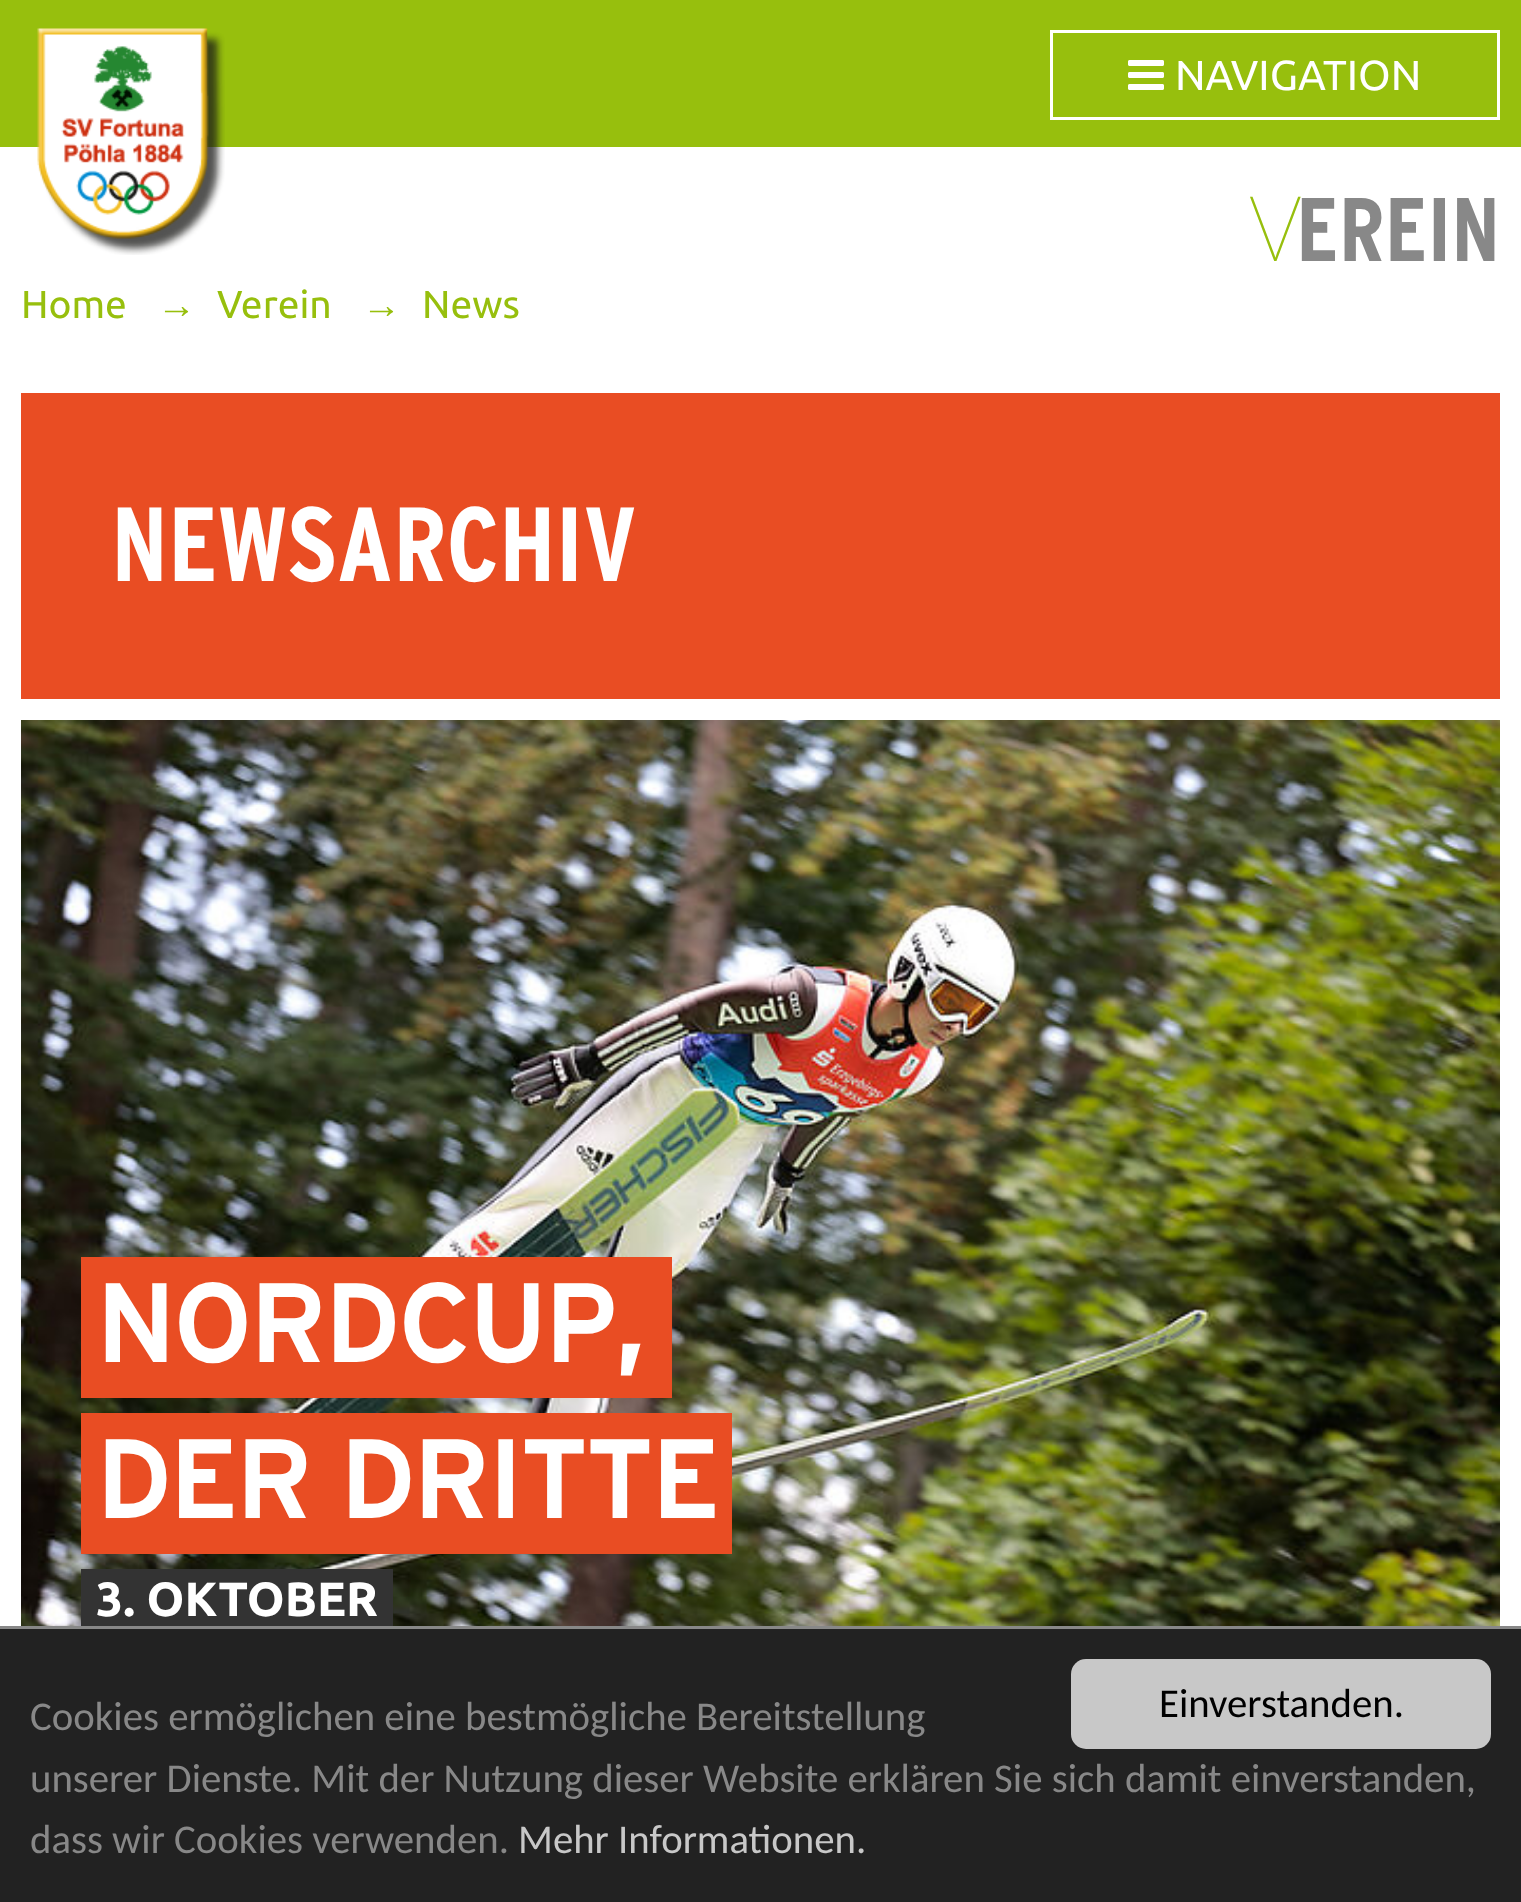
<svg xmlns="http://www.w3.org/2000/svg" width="1521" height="1902">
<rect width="100%" height="100%" fill="#fff"/>
<image x="0" y="1581" width="1521" height="45" href="media/1.png"/>
<rect width="1521" height="147" fill="#97bf0d"/>
<image x="37" y="28" width="188" height="227" href="media/2.png"/>
<rect x="1051.5" y="31.5" width="447" height="87" fill="none" stroke="#fff" stroke-width="3"/>
<image x="1128" y="60" width="36" height="30" href="media/3.png"/>
<text x="1175" y="90" style="font-family:Ubuntu;font-size:42px;fill:#fff">NAVIGATION</text>
<text x="1250" y="261" style="font-family:Noto Sans;font-size:90px;font-weight:100;fill:#97bf0d">V</text>
<text x="1296" y="261" style="font-family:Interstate;font-size:90px;font-weight:bold;fill:#888">EREIN</text>
<text x="21" y="318" style="font-family:Ubuntu;font-size:39px;fill:#97bf0d">Home</text>
<text x="157" y="318" style="font-family:Liberation Sans;font-size:39px;fill:#97bf0d">→</text>
<text x="217" y="318" style="font-family:Ubuntu;font-size:39px;fill:#97bf0d">Verein</text>
<text x="362" y="318" style="font-family:Liberation Sans;font-size:39px;fill:#97bf0d">→</text>
<text x="422" y="318" style="font-family:Ubuntu;font-size:39px;fill:#97bf0d">News</text>
<rect x="21" y="393" width="1479" height="306" fill="#e94d23"/>
<text x="111" y="581" style="font-family:Interstate;font-size:105px;font-weight:bold;fill:#fff">NEWSARCHIV</text>
<image x="21" y="720" width="1479" height="906" href="media/4.png"/>
<rect x="81" y="1257" width="591" height="141" fill="#e94d23"/>
<text x="96" y="1362" style="font-family:'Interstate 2';font-size:108px;font-weight:bold;fill:#fff">NORDCUP,</text>
<rect x="81" y="1413" width="651" height="141" fill="#e94d23"/>
<text x="96" y="1518" style="font-family:'Interstate 2';font-size:108px;font-weight:bold;fill:#fff">DER DRITTE</text>
<rect x="81" y="1569" width="312" height="57" fill="#333"/>
<text x="96" y="1616" style="font-family:Ubuntu;font-size:48px;font-weight:bold;fill:#fff">3. OKTOBER</text>
<rect y="1629" width="1521" height="273" fill="#222"/>
<rect y="1626" width="1521" height="3" fill="#888"/>
<rect x="1071" y="1659" width="420" height="90" rx="15" fill="#c8c8c8"/>
<text x="1159" y="1717" style="font-family:Carlito;font-size:40.8px;fill:#000">Einverstanden.</text>
<text x="30" y="1730" style="font-family:Carlito;font-size:40.8px;fill:#888">Cookies ermöglichen eine bestmögliche Bereitstellung</text>
<text x="30" y="1792" style="font-family:Carlito;font-size:40.8px;fill:#888">unserer Dienste. Mit der Nutzung dieser Website erklären Sie sich damit einverstanden,</text>
<text x="30" y="1853" style="font-family:Carlito;font-size:40.8px;fill:#888">dass wir Cookies verwenden.</text>
<text x="518" y="1853" style="font-family:Carlito;font-size:40.8px;fill:#c8c8c8">Mehr Informationen.</text>
</svg>
